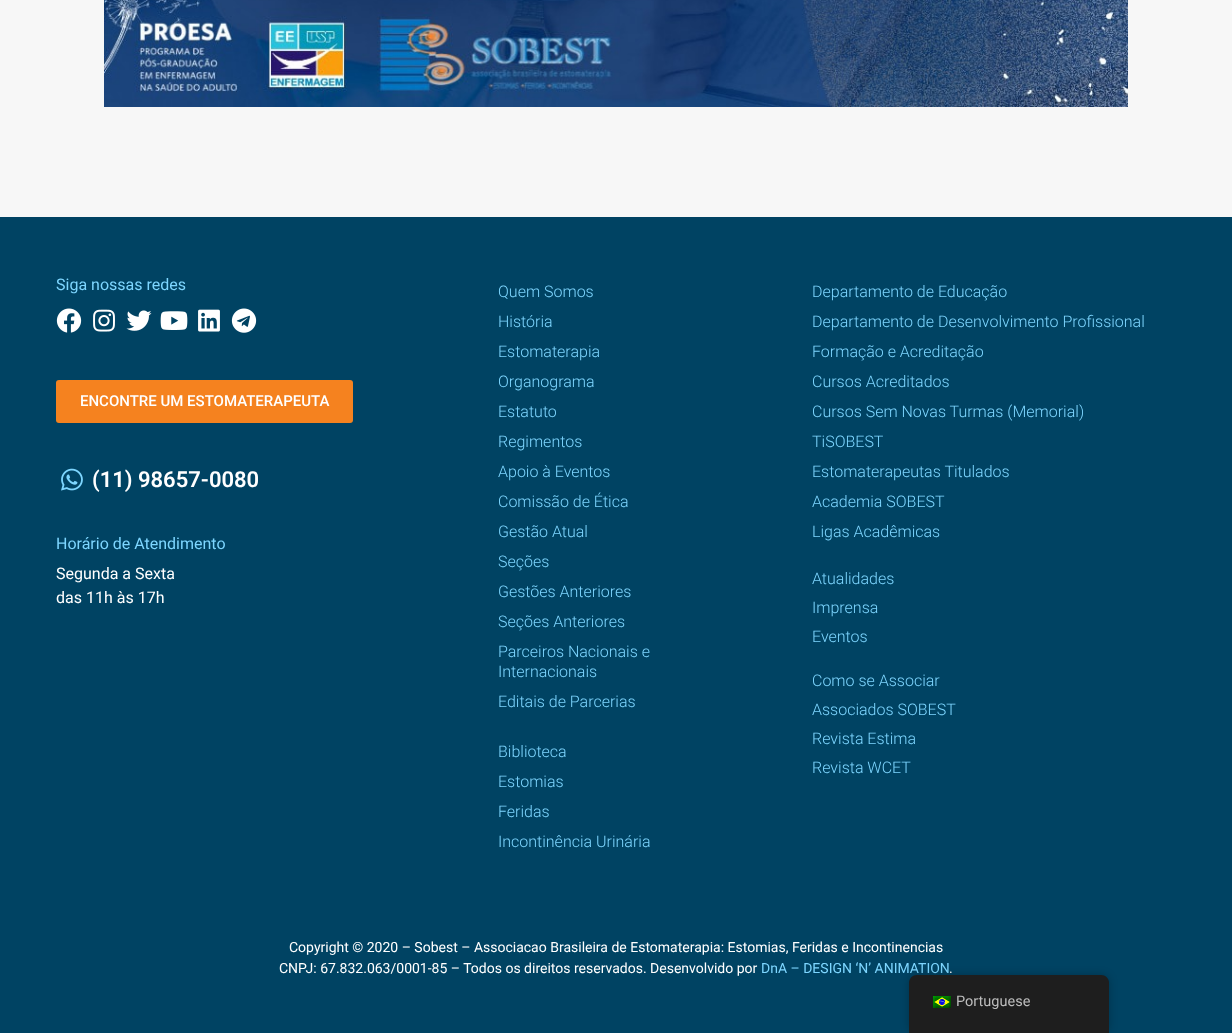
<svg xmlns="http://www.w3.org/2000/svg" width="1232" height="1033">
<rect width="100%" height="100%" fill="#f7f7f7"/>
<image x="104" y="0" width="1024" height="107" href="media/1.png"/>
<rect y="217" width="1232" height="816" fill="#004363"/>
<text x="56" y="290" style="font-family:Roboto;font-size:16px;fill:#7dd6ff">Siga nossas redes</text>
<image x="56" y="308" width="26" height="25" href="media/2.png"/>
<image x="93" y="309" width="22" height="23" href="media/3.png"/>
<image x="126" y="310" width="26" height="21" href="media/4.png"/>
<image x="160" y="311" width="28" height="19" href="media/5.png"/>
<image x="198" y="309" width="22" height="23" href="media/6.png"/>
<image x="231" y="308" width="26" height="25" href="media/7.png"/>
<rect x="56" y="380" width="297" height="43" rx="3" fill="#f5821f"/>
<text x="80" y="406" style="font-family:Roboto;font-size:15px;font-weight:500;fill:#fff">ENCONTRE UM ESTOMATERAPEUTA</text>
<image x="61" y="468" width="22" height="23" href="media/8.png"/>
<text x="92" y="487" style="font-family:Roboto;font-size:22px;font-weight:600;fill:#fff">(11) 98657-0080</text>
<text x="56" y="549" style="font-family:Roboto;font-size:16px;fill:#7dd6ff">Horário de Atendimento</text>
<text x="56" y="579" style="font-family:Roboto;font-size:16px;fill:#fff">Segunda a Sexta</text>
<text x="56" y="603" style="font-family:Roboto;font-size:16px;fill:#fff">das 11h às 17h</text>
<text x="498" y="297" style="font-family:Roboto;font-size:16px;font-weight:300;fill:#7dd6ff">Quem Somos</text>
<text x="498" y="327" style="font-family:Roboto;font-size:16px;font-weight:300;fill:#7dd6ff">História</text>
<text x="498" y="357" style="font-family:Roboto;font-size:16px;font-weight:300;fill:#7dd6ff">Estomaterapia</text>
<text x="498" y="387" style="font-family:Roboto;font-size:16px;font-weight:300;fill:#7dd6ff">Organograma</text>
<text x="498" y="417" style="font-family:Roboto;font-size:16px;font-weight:300;fill:#7dd6ff">Estatuto</text>
<text x="498" y="447" style="font-family:Roboto;font-size:16px;font-weight:300;fill:#7dd6ff">Regimentos</text>
<text x="498" y="477" style="font-family:Roboto;font-size:16px;font-weight:300;fill:#7dd6ff">Apoio à Eventos</text>
<text x="498" y="507" style="font-family:Roboto;font-size:16px;font-weight:300;fill:#7dd6ff">Comissão de Ética</text>
<text x="498" y="537" style="font-family:Roboto;font-size:16px;font-weight:300;fill:#7dd6ff">Gestão Atual</text>
<text x="498" y="567" style="font-family:Roboto;font-size:16px;font-weight:300;fill:#7dd6ff">Seções</text>
<text x="498" y="597" style="font-family:Roboto;font-size:16px;font-weight:300;fill:#7dd6ff">Gestões Anteriores</text>
<text x="498" y="627" style="font-family:Roboto;font-size:16px;font-weight:300;fill:#7dd6ff">Seções Anteriores</text>
<text x="498" y="657" style="font-family:Roboto;font-size:16px;font-weight:300;fill:#7dd6ff">Parceiros Nacionais e</text>
<text x="498" y="677" style="font-family:Roboto;font-size:16px;font-weight:300;fill:#7dd6ff">Internacionais</text>
<text x="498" y="707" style="font-family:Roboto;font-size:16px;font-weight:300;fill:#7dd6ff">Editais de Parcerias</text>
<text x="498" y="757" style="font-family:Roboto;font-size:16px;font-weight:300;fill:#7dd6ff">Biblioteca</text>
<text x="498" y="787" style="font-family:Roboto;font-size:16px;font-weight:300;fill:#7dd6ff">Estomias</text>
<text x="498" y="817" style="font-family:Roboto;font-size:16px;font-weight:300;fill:#7dd6ff">Feridas</text>
<text x="498" y="847" style="font-family:Roboto;font-size:16px;font-weight:300;fill:#7dd6ff">Incontinência Urinária</text>
<text x="812" y="297" style="font-family:Roboto;font-size:16px;font-weight:300;fill:#7dd6ff">Departamento de Educação</text>
<text x="812" y="327" style="font-family:Roboto;font-size:16px;font-weight:300;fill:#7dd6ff">Departamento de Desenvolvimento Profissional</text>
<text x="812" y="357" style="font-family:Roboto;font-size:16px;font-weight:300;fill:#7dd6ff">Formação e Acreditação</text>
<text x="812" y="387" style="font-family:Roboto;font-size:16px;font-weight:300;fill:#7dd6ff">Cursos Acreditados</text>
<text x="812" y="417" style="font-family:Roboto;font-size:16px;font-weight:300;fill:#7dd6ff">Cursos Sem Novas Turmas (Memorial)</text>
<text x="812" y="447" style="font-family:Roboto;font-size:16px;font-weight:300;fill:#7dd6ff">TiSOBEST</text>
<text x="812" y="477" style="font-family:Roboto;font-size:16px;font-weight:300;fill:#7dd6ff">Estomaterapeutas Titulados</text>
<text x="812" y="507" style="font-family:Roboto;font-size:16px;font-weight:300;fill:#7dd6ff">Academia SOBEST</text>
<text x="812" y="537" style="font-family:Roboto;font-size:16px;font-weight:300;fill:#7dd6ff">Ligas Acadêmicas</text>
<text x="812" y="584" style="font-family:Roboto;font-size:16px;font-weight:300;fill:#7dd6ff">Atualidades</text>
<text x="812" y="613" style="font-family:Roboto;font-size:16px;font-weight:300;fill:#7dd6ff">Imprensa</text>
<text x="812" y="642" style="font-family:Roboto;font-size:16px;font-weight:300;fill:#7dd6ff">Eventos</text>
<text x="812" y="686" style="font-family:Roboto;font-size:16px;font-weight:300;fill:#7dd6ff">Como se Associar</text>
<text x="812" y="715" style="font-family:Roboto;font-size:16px;font-weight:300;fill:#7dd6ff">Associados SOBEST</text>
<text x="812" y="744" style="font-family:Roboto;font-size:16px;font-weight:300;fill:#7dd6ff">Revista Estima</text>
<text x="812" y="773" style="font-family:Roboto;font-size:16px;font-weight:300;fill:#7dd6ff">Revista WCET</text>
<text x="289" y="952" style="font-family:Roboto;font-size:14px;fill:#fff">Copyright © 2020 – Sobest – Associacao Brasileira de Estomaterapia: Estomias, Feridas e Incontinencias</text>
<text x="279" y="973" style="font-family:Roboto;font-size:14px;fill:#fff">CNPJ: 67.832.063/0001-85 – Todos os direitos reservados. Desenvolvido por</text>
<text x="761" y="973" style="font-family:Roboto;font-size:14px;fill:#7dd6ff">DnA – DESIGN ‘N’ ANIMATION</text>
<text x="949" y="973" style="font-family:Roboto;font-size:14px;fill:#fff">.</text>
<rect x="909" y="975" width="200" height="58" rx="8" fill="#00000040" filter="blur(4px)"/>
<path d="M917 975h184c4.5 0 8 3.5 8 8v50h-200v-50c0-4.5 3.5-8 8-8z" fill="#1e1e1e"/>
<image x="933" y="996" width="18" height="12" href="media/9.png"/>
<text x="956" y="1006" style="font-family:Roboto;font-size:14.5px;fill:#bdbdbd">Portuguese</text>
</svg>
